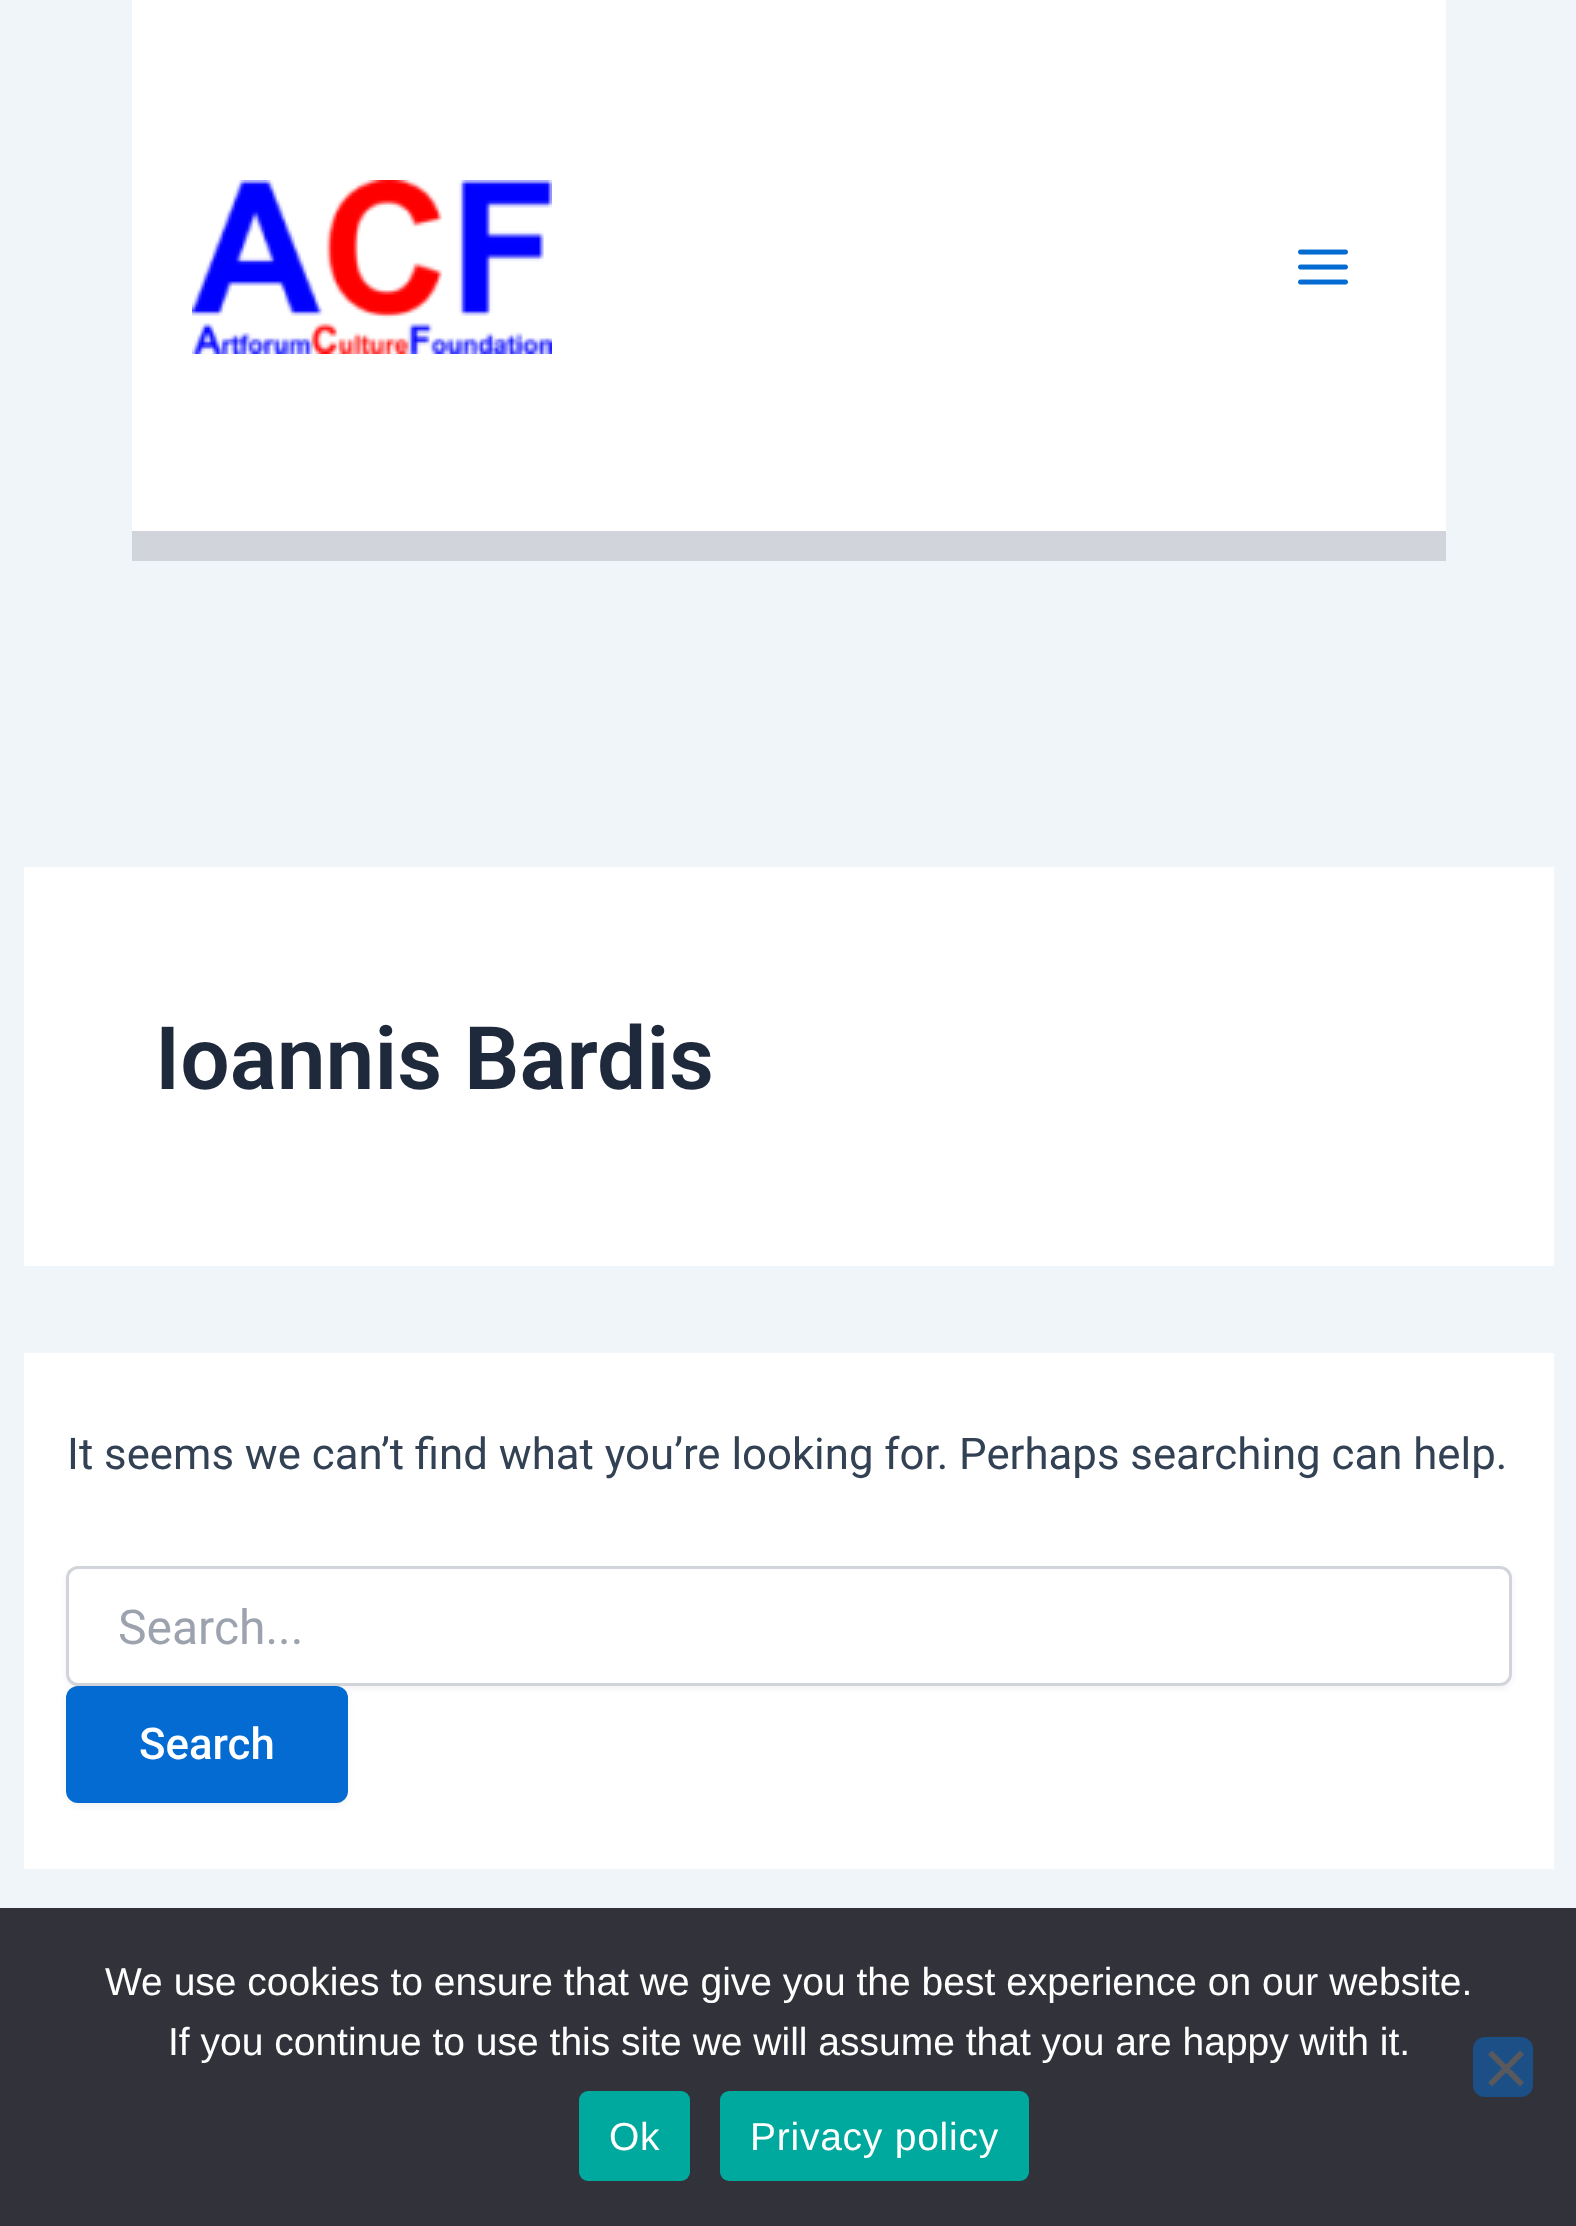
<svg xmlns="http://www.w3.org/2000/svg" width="1576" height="2226">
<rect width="100%" height="100%" fill="#f0f5fa"/>
<rect x="132" width="1314" height="531" fill="#fff"/>
<rect x="132" y="531" width="1314" height="30" fill="#d1d5db"/>
<image x="192" y="180" width="360" height="174" href="media/1.png"/>
<image x="1298" y="249" width="50" height="36" href="media/2.png"/>
<rect x="24" y="867" width="1530" height="399" fill="#fff"/>
<text x="155" y="1089" style="font-family:Roboto;font-size:87.5px;font-weight:600;fill:#1e293b">Ioannis Bardis</text>
<rect x="24" y="1353" width="1530" height="516" fill="#fff"/>
<text x="67" y="1469" style="font-family:Roboto;font-size:43.75px;fill:#334155">It seems we can’t find what you’re looking for. Perhaps searching can help.</text>
<rect x="66" y="1569" width="1446" height="120" rx="12" fill="#0000000d" filter="blur(3px)"/>
<rect x="67.5" y="1567.5" width="1443" height="117" rx="10.5" fill="#fff" stroke="#d1d5db" stroke-width="3"/>
<text x="118" y="1644" style="font-family:Roboto;font-size:48px;fill:#9ca3af">Search...</text>
<rect x="66" y="1689" width="282" height="117" rx="12" fill="#0000000d" filter="blur(3px)"/>
<rect x="66" y="1686" width="282" height="117" rx="12" fill="#046bd2"/>
<text x="139" y="1759" style="font-family:Roboto;font-size:43.75px;font-weight:500;fill:#fff">Search</text>
<rect y="1908" width="1576" height="318" fill="#32323a"/>
<text x="105" y="1995" style="font-family:Liberation Sans;font-size:39px;fill:#fff">We use cookies to ensure that we give you the best experience on our website.</text>
<text x="168" y="2055" style="font-family:Liberation Sans;font-size:39px;fill:#fff">If you continue to use this site we will assume that you are happy with it.</text>
<rect x="1473" y="2037" width="60" height="60" rx="12" fill="#1b4f86"/>
<path d="M1520 2050.5l4 4l-32 32l-4-4z" fill="#59595d"/>
<path d="M1488 2054.5l4-4l32 32l-4 4z" fill="#59595d"/>
<rect x="579" y="2091" width="111" height="90" rx="9" fill="#00a99d"/>
<text x="609" y="2150" style="font-family:Liberation Sans;font-size:39px;letter-spacing:0.75px;fill:#fff">Ok</text>
<rect x="720" y="2091" width="309" height="90" rx="9" fill="#00a99d"/>
<text x="750" y="2150" style="font-family:Liberation Sans;font-size:39px;letter-spacing:0.75px;fill:#fff">Privacy policy</text>
</svg>
